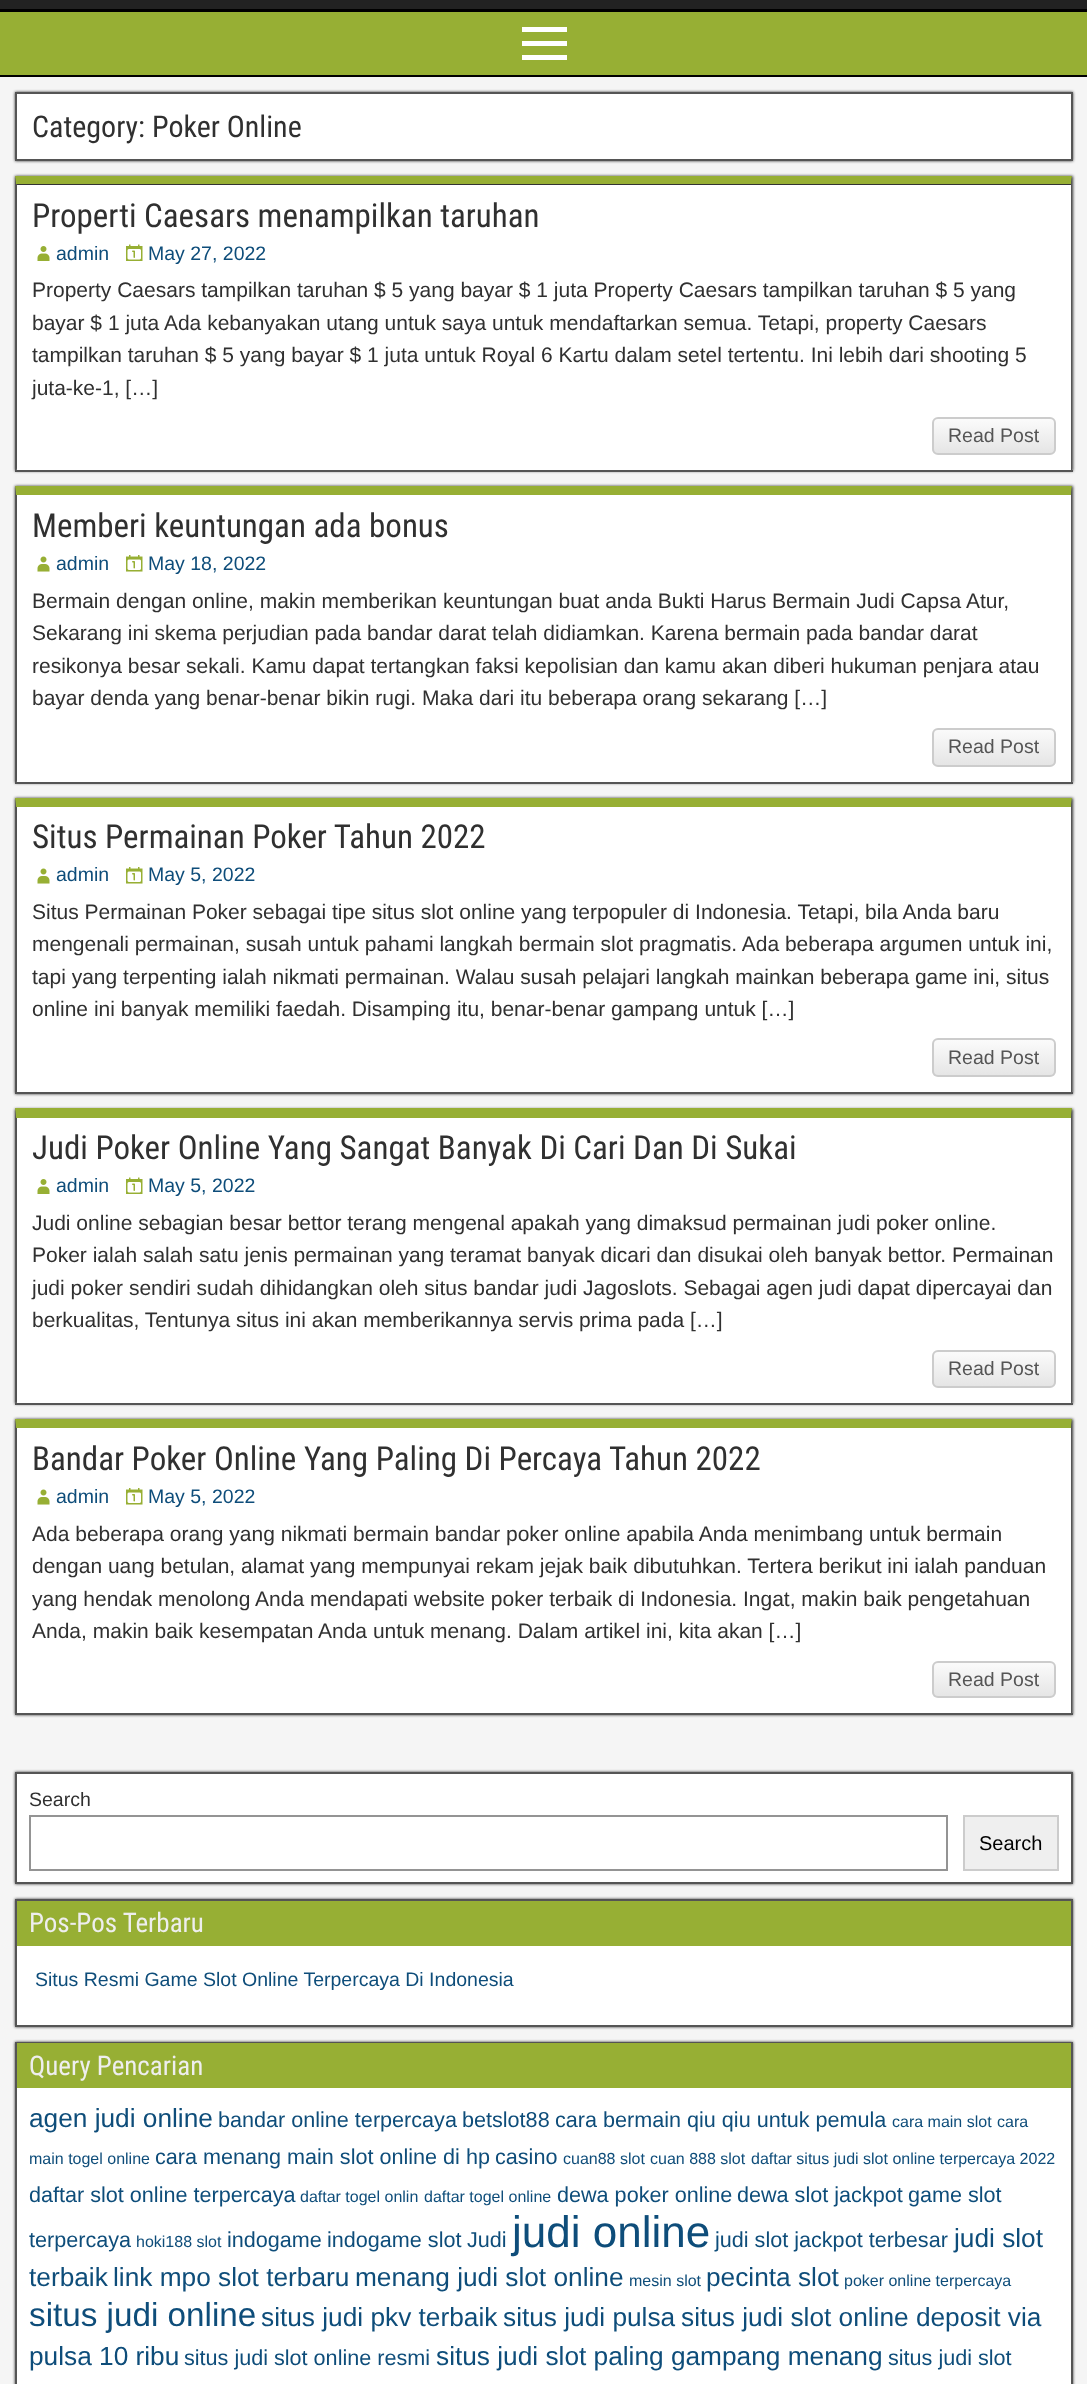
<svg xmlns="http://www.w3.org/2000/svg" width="1087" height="2384">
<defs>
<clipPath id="clip1"><rect x="932" y="417" width="124" height="38" rx="6"/></clipPath>
<linearGradient id="g1" gradientUnits="userSpaceOnUse" x1="994" y1="419" x2="994" y2="453"><stop offset="0" stop-color="#fbfbfb"/><stop offset="1" stop-color="#e5e5e5"/></linearGradient>
<clipPath id="clip2"><rect x="932" y="728" width="124" height="39" rx="6"/></clipPath>
<linearGradient id="g2" gradientUnits="userSpaceOnUse" x1="994" y1="729" x2="994" y2="765"><stop offset="0" stop-color="#fbfbfb"/><stop offset="1" stop-color="#e5e5e5"/></linearGradient>
<clipPath id="clip3"><rect x="932" y="1038" width="124" height="39" rx="6"/></clipPath>
<linearGradient id="g3" gradientUnits="userSpaceOnUse" x1="994" y1="1040" x2="994" y2="1076"><stop offset="0" stop-color="#fbfbfb"/><stop offset="1" stop-color="#e5e5e5"/></linearGradient>
<clipPath id="clip4"><rect x="932" y="1350" width="124" height="38" rx="6"/></clipPath>
<linearGradient id="g4" gradientUnits="userSpaceOnUse" x1="994" y1="1352" x2="994" y2="1386"><stop offset="0" stop-color="#fbfbfb"/><stop offset="1" stop-color="#e5e5e5"/></linearGradient>
<clipPath id="clip5"><rect x="932" y="1661" width="124" height="37" rx="6"/></clipPath>
<linearGradient id="g5" gradientUnits="userSpaceOnUse" x1="994" y1="1662" x2="994" y2="1697"><stop offset="0" stop-color="#fbfbfb"/><stop offset="1" stop-color="#e5e5e5"/></linearGradient>
</defs>
<rect width="100%" height="100%" fill="#222"/>
<rect y="9" width="1087" height="3" fill="#000"/>
<rect y="12" width="1087" height="63" fill="#97af34"/>
<rect y="75" width="1087" height="2" fill="#000"/>
<path d="M522 60v-5h45v5zm0-33h45v5h-45zm0 19v-5h45v5z" fill="#fff"/>
<rect y="77" width="1087" height="2307" fill="#f5f5f5"/>
<rect x="15" y="92" width="1058" height="69" fill="#333" filter="blur(1.5px)"/>
<rect x="16" y="93" width="1056" height="67" fill="#fff" stroke="#555" stroke-width="2"/>
<text x="32" y="137" style="font-family:Roboto Condensed;font-size:30px;fill:#303030">Category: Poker Online</text>
<rect x="15" y="176" width="1058" height="295" fill="#333" filter="blur(1.5px)"/>
<rect x="17" y="185" width="1054" height="285" fill="#fff"/>
<path d="M15 176h1057l-1 8h-1055z" fill="#97af34"/>
<path d="M1072 176v295l-1-1v-286z" fill="#555"/>
<rect x="15" y="470" width="1058" height="2" fill="#555"/>
<path d="M15 471v-295l1 8v286z" fill="#555"/>
<text x="32" y="227" style="font-family:Roboto Condensed;font-size:33px;fill:#303030">Properti Caesars menampilkan taruhan</text>
<image x="37" y="246" width="13" height="15" href="media/1.png"/>
<text x="56" y="260" style="font-family:Liberation Sans;font-size:19.5px;fill:#0e4d7a">admin</text>
<image x="126" y="244" width="17" height="17" href="media/2.png"/>
<text x="148" y="260" style="font-family:Liberation Sans;font-size:19.5px;fill:#0e4d7a">May 27, 2022</text>
<text x="32" y="297" style="font-family:Arimo;font-size:21px;fill:#303030">Property Caesars tampilkan taruhan $ 5 yang bayar $ 1 juta Property Caesars tampilkan taruhan $ 5 yang</text>
<text x="32" y="330" style="font-family:Arimo;font-size:21px;fill:#303030">bayar $ 1 juta Ada kebanyakan utang untuk saya untuk mendaftarkan semua. Tetapi, property Caesars</text>
<text x="32" y="362" style="font-family:Arimo;font-size:21px;fill:#303030">tampilkan taruhan $ 5 yang bayar $ 1 juta untuk Royal 6 Kartu dalam setel tertentu. Ini lebih dari shooting 5</text>
<text x="32" y="395" style="font-family:Arimo;font-size:21px;fill:#303030">juta-ke-1, […]</text>
<g clip-path="url(#clip1)">
<rect x="932" y="419" width="124" height="34" fill="url(#g1)"/>
</g>
<rect x="933" y="418" width="122" height="36" rx="5" fill="none" stroke="#ccc" stroke-width="2"/>
<text x="948" y="442" style="font-family:Liberation Sans;font-size:19.5px;fill:#555">Read Post</text>
<rect x="15" y="486" width="1058" height="297" fill="#333" filter="blur(1.5px)"/>
<rect x="17" y="495" width="1054" height="287" fill="#fff"/>
<path d="M15 486h1057l-1 9h-1055z" fill="#97af34"/>
<path d="M1072 486v297l-1-1v-287z" fill="#555"/>
<rect x="15" y="782" width="1058" height="2" fill="#555"/>
<path d="M15 783v-297l1 9v287z" fill="#555"/>
<text x="32" y="537" style="font-family:Roboto Condensed;font-size:33px;fill:#303030">Memberi keuntungan ada bonus</text>
<image x="37" y="556" width="13" height="16" href="media/3.png"/>
<text x="56" y="570" style="font-family:Liberation Sans;font-size:19.5px;fill:#0e4d7a">admin</text>
<image x="126" y="555" width="17" height="17" href="media/4.png"/>
<text x="148" y="570" style="font-family:Liberation Sans;font-size:19.5px;fill:#0e4d7a">May 18, 2022</text>
<text x="32" y="608" style="font-family:Arimo;font-size:21px;fill:#303030">Bermain dengan online, makin memberikan keuntungan buat anda Bukti Harus Bermain Judi Capsa Atur,</text>
<text x="32" y="640" style="font-family:Arimo;font-size:21px;fill:#303030">Sekarang ini skema perjudian pada bandar darat telah didiamkan. Karena bermain pada bandar darat</text>
<text x="32" y="673" style="font-family:Arimo;font-size:21px;fill:#303030">resikonya besar sekali. Kamu dapat tertangkan faksi kepolisian dan kamu akan diberi hukuman penjara atau</text>
<text x="32" y="705" style="font-family:Arimo;font-size:21px;fill:#303030">bayar denda yang benar-benar bikin rugi. Maka dari itu beberapa orang sekarang […]</text>
<g clip-path="url(#clip2)">
<rect x="932" y="729" width="124" height="36" fill="url(#g2)"/>
</g>
<rect x="933" y="729" width="122" height="37" rx="5" fill="none" stroke="#ccc" stroke-width="2"/>
<text x="948" y="753" style="font-family:Liberation Sans;font-size:19.5px;fill:#555">Read Post</text>
<rect x="15" y="798" width="1058" height="296" fill="#333" filter="blur(1.5px)"/>
<rect x="17" y="807" width="1054" height="285" fill="#fff"/>
<path d="M15 798h1057l-1 9h-1055z" fill="#97af34"/>
<path d="M1072 798v296l-1-2v-285z" fill="#555"/>
<rect x="15" y="1092" width="1058" height="2" fill="#555"/>
<path d="M15 1094v-296l1 9v285z" fill="#555"/>
<text x="32" y="848" style="font-family:Roboto Condensed;font-size:33px;fill:#303030">Situs Permainan Poker Tahun 2022</text>
<image x="37" y="868" width="13" height="16" href="media/3.png"/>
<text x="56" y="881" style="font-family:Liberation Sans;font-size:19.5px;fill:#0e4d7a">admin</text>
<image x="126" y="867" width="17" height="17" href="media/4.png"/>
<text x="148" y="881" style="font-family:Liberation Sans;font-size:19.5px;fill:#0e4d7a">May 5, 2022</text>
<text x="32" y="919" style="font-family:Arimo;font-size:21px;fill:#303030">Situs Permainan Poker sebagai tipe situs slot online yang terpopuler di Indonesia. Tetapi, bila Anda baru</text>
<text x="32" y="951" style="font-family:Arimo;font-size:21px;fill:#303030">mengenali permainan, susah untuk pahami langkah bermain slot pragmatis. Ada beberapa argumen untuk ini,</text>
<text x="32" y="984" style="font-family:Arimo;font-size:21px;fill:#303030">tapi yang terpenting ialah nikmati permainan. Walau susah pelajari langkah mainkan beberapa game ini, situs</text>
<text x="32" y="1016" style="font-family:Arimo;font-size:21px;fill:#303030">online ini banyak memiliki faedah. Disamping itu, benar-benar gampang untuk […]</text>
<g clip-path="url(#clip3)">
<rect x="932" y="1040" width="124" height="36" fill="url(#g3)"/>
</g>
<rect x="933" y="1039" width="122" height="37" rx="5" fill="none" stroke="#ccc" stroke-width="2"/>
<text x="948" y="1064" style="font-family:Liberation Sans;font-size:19.5px;fill:#555">Read Post</text>
<rect x="15" y="1109" width="1058" height="295" fill="#333" filter="blur(1.5px)"/>
<rect x="17" y="1118" width="1054" height="285" fill="#fff"/>
<path d="M15 1108h1057l-1 10h-1055z" fill="#97af34"/>
<path d="M1072 1108v296l-1-2v-284z" fill="#555"/>
<rect x="15" y="1403" width="1058" height="2" fill="#555"/>
<path d="M15 1404v-296l1 10v284z" fill="#555"/>
<text x="32" y="1159" style="font-family:Roboto Condensed;font-size:33px;fill:#303030">Judi Poker Online Yang Sangat Banyak Di Cari Dan Di Sukai</text>
<image x="37" y="1179" width="13" height="15" href="media/1.png"/>
<text x="56" y="1192" style="font-family:Liberation Sans;font-size:19.5px;fill:#0e4d7a">admin</text>
<image x="126" y="1177" width="17" height="17" href="media/2.png"/>
<text x="148" y="1192" style="font-family:Liberation Sans;font-size:19.5px;fill:#0e4d7a">May 5, 2022</text>
<text x="32" y="1230" style="font-family:Arimo;font-size:21px;fill:#303030">Judi online sebagian besar bettor terang mengenal apakah yang dimaksud permainan judi poker online.</text>
<text x="32" y="1262" style="font-family:Arimo;font-size:21px;fill:#303030">Poker ialah salah satu jenis permainan yang teramat banyak dicari dan disukai oleh banyak bettor. Permainan</text>
<text x="32" y="1295" style="font-family:Arimo;font-size:21px;fill:#303030">judi poker sendiri sudah dihidangkan oleh situs bandar judi Jagoslots. Sebagai agen judi dapat dipercayai dan</text>
<text x="32" y="1327" style="font-family:Arimo;font-size:21px;fill:#303030">berkualitas, Tentunya situs ini akan memberikannya servis prima pada […]</text>
<g clip-path="url(#clip4)">
<rect x="932" y="1352" width="124" height="34" fill="url(#g4)"/>
</g>
<rect x="933" y="1351" width="122" height="36" rx="5" fill="none" stroke="#ccc" stroke-width="2"/>
<text x="948" y="1375" style="font-family:Liberation Sans;font-size:19.5px;fill:#555">Read Post</text>
<rect x="15" y="1419" width="1058" height="296" fill="#333" filter="blur(1.5px)"/>
<rect x="17" y="1428" width="1054" height="285" fill="#fff"/>
<path d="M15 1419h1057l-1 9h-1055z" fill="#97af34"/>
<path d="M1072 1419v295l-1-1v-285z" fill="#555"/>
<rect x="15" y="1713" width="1058" height="2" fill="#555"/>
<path d="M15 1714v-295l1 9v285z" fill="#555"/>
<text x="32" y="1470" style="font-family:Roboto Condensed;font-size:33px;fill:#303030">Bandar Poker Online Yang Paling Di Percaya Tahun 2022</text>
<image x="37" y="1489" width="13" height="16" href="media/3.png"/>
<text x="56" y="1503" style="font-family:Liberation Sans;font-size:19.5px;fill:#0e4d7a">admin</text>
<image x="126" y="1488" width="17" height="17" href="media/4.png"/>
<text x="148" y="1503" style="font-family:Liberation Sans;font-size:19.5px;fill:#0e4d7a">May 5, 2022</text>
<text x="32" y="1541" style="font-family:Arimo;font-size:21px;fill:#303030">Ada beberapa orang yang nikmati bermain bandar poker online apabila Anda menimbang untuk bermain</text>
<text x="32" y="1573" style="font-family:Arimo;font-size:21px;fill:#303030">dengan uang betulan, alamat yang mempunyai rekam jejak baik dibutuhkan. Tertera berikut ini ialah panduan</text>
<text x="32" y="1606" style="font-family:Arimo;font-size:21px;fill:#303030">yang hendak menolong Anda mendapati website poker terbaik di Indonesia. Ingat, makin baik pengetahuan</text>
<text x="32" y="1638" style="font-family:Arimo;font-size:21px;fill:#303030">Anda, makin baik kesempatan Anda untuk menang. Dalam artikel ini, kita akan […]</text>
<g clip-path="url(#clip5)">
<rect x="932" y="1662" width="124" height="35" fill="url(#g5)"/>
</g>
<rect x="933" y="1662" width="122" height="35" rx="5" fill="none" stroke="#ccc" stroke-width="2"/>
<text x="948" y="1686" style="font-family:Liberation Sans;font-size:19.5px;fill:#555">Read Post</text>
<rect x="15" y="1772" width="1058" height="112" fill="#333" filter="blur(1.5px)"/>
<rect x="16" y="1773" width="1056" height="110" fill="#fff" stroke="#555" stroke-width="2"/>
<text x="29" y="1806" style="font-family:Liberation Sans;font-size:19.5px;fill:#303030">Search</text>
<rect x="30" y="1816" width="917" height="54" fill="none" stroke="#949494" stroke-width="2"/>
<rect x="964" y="1816" width="94" height="54" fill="#efefef" stroke="#ccc" stroke-width="2"/>
<text x="979" y="1850" style="font-family:Liberation Sans;font-size:20px;fill:#000">Search</text>
<rect x="15" y="1899" width="1058" height="128" fill="#333" filter="blur(1.5px)"/>
<rect x="17" y="1946" width="1054" height="79" fill="#fff"/>
<rect x="16" y="1900" width="1056" height="126" fill="none" stroke="#555" stroke-width="2"/>
<rect x="17" y="1901" width="1054" height="45" fill="#97af34"/>
<text x="29" y="1932" style="font-family:Roboto Condensed;font-size:27px;fill:#eee">Pos-Pos Terbaru</text>
<text x="35" y="1986" style="font-family:Liberation Sans;font-size:19.5px;fill:#0e4d7a">Situs Resmi Game Slot Online Terpercaya Di Indonesia</text>
<rect x="15" y="2042" width="1058" height="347" fill="#333" filter="blur(1.5px)"/>
<rect x="17" y="2088" width="1054" height="296" fill="#fff"/>
<rect x="16" y="2043" width="1056" height="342" fill="none" stroke="#555" stroke-width="2"/>
<rect x="17" y="2043" width="1054" height="45" fill="#97af34"/>
<text x="29" y="2075" style="font-family:Roboto Condensed;font-size:27px;fill:#eee">Query Pencarian</text>
<text x="29" y="2127" style="font-family:Liberation Sans;font-size:26.25px;fill:#0e4d7a">agen judi online</text>
<text x="218" y="2127" style="font-family:Liberation Sans;font-size:21.6px;fill:#0e4d7a">bandar online terpercaya</text>
<text x="462" y="2127" style="font-family:Liberation Sans;font-size:21.6px;fill:#0e4d7a">betslot88</text>
<text x="555" y="2127" style="font-family:Liberation Sans;font-size:21.6px;fill:#0e4d7a">cara bermain qiu qiu untuk pemula</text>
<text x="892" y="2127" style="font-family:Liberation Sans;font-size:16px;fill:#0e4d7a">cara main slot</text>
<text x="997" y="2127" style="font-family:Liberation Sans;font-size:16px;fill:#0e4d7a">cara</text>
<text x="29" y="2164" style="font-family:Liberation Sans;font-size:16px;fill:#0e4d7a">main togel online</text>
<text x="155" y="2164" style="font-family:Liberation Sans;font-size:21.6px;fill:#0e4d7a">cara menang main slot online di hp</text>
<text x="495" y="2164" style="font-family:Liberation Sans;font-size:21.6px;fill:#0e4d7a">casino</text>
<text x="563" y="2164" style="font-family:Liberation Sans;font-size:16px;fill:#0e4d7a">cuan88 slot</text>
<text x="650" y="2164" style="font-family:Liberation Sans;font-size:16px;fill:#0e4d7a">cuan 888 slot</text>
<text x="751" y="2164" style="font-family:Liberation Sans;font-size:16px;fill:#0e4d7a">daftar situs judi slot online terpercaya 2022</text>
<text x="29" y="2202" style="font-family:Liberation Sans;font-size:21.6px;fill:#0e4d7a">daftar slot online terpercaya</text>
<text x="300" y="2202" style="font-family:Liberation Sans;font-size:16px;fill:#0e4d7a">daftar togel onlin</text>
<text x="424" y="2202" style="font-family:Liberation Sans;font-size:16px;fill:#0e4d7a">daftar togel online</text>
<text x="557" y="2202" style="font-family:Liberation Sans;font-size:21.6px;fill:#0e4d7a">dewa poker online</text>
<text x="737" y="2202" style="font-family:Liberation Sans;font-size:21.6px;fill:#0e4d7a">dewa slot jackpot</text>
<text x="908" y="2202" style="font-family:Liberation Sans;font-size:21.6px;fill:#0e4d7a">game slot</text>
<text x="29" y="2247" style="font-family:Liberation Sans;font-size:21.6px;fill:#0e4d7a">terpercaya</text>
<text x="136" y="2247" style="font-family:Liberation Sans;font-size:16px;fill:#0e4d7a">hoki188 slot</text>
<text x="227" y="2247" style="font-family:Liberation Sans;font-size:21.6px;fill:#0e4d7a">indogame</text>
<text x="327" y="2247" style="font-family:Liberation Sans;font-size:21.6px;fill:#0e4d7a">indogame slot</text>
<text x="467" y="2247" style="font-family:Liberation Sans;font-size:21.6px;fill:#0e4d7a">Judi</text>
<text x="512" y="2247" style="font-family:Liberation Sans;font-size:44px;fill:#0e4d7a">judi online</text>
<text x="715" y="2247" style="font-family:Liberation Sans;font-size:21.6px;fill:#0e4d7a">judi slot jackpot terbesar</text>
<text x="954" y="2247" style="font-family:Liberation Sans;font-size:26.25px;fill:#0e4d7a">judi slot</text>
<text x="29" y="2286" style="font-family:Liberation Sans;font-size:26.25px;fill:#0e4d7a">terbaik</text>
<text x="113" y="2286" style="font-family:Liberation Sans;font-size:26.25px;fill:#0e4d7a">link mpo slot terbaru</text>
<text x="355" y="2286" style="font-family:Liberation Sans;font-size:26.25px;fill:#0e4d7a">menang judi slot online</text>
<text x="629" y="2286" style="font-family:Liberation Sans;font-size:16px;fill:#0e4d7a">mesin slot</text>
<text x="706" y="2286" style="font-family:Liberation Sans;font-size:26.25px;fill:#0e4d7a">pecinta slot</text>
<text x="844" y="2286" style="font-family:Liberation Sans;font-size:16px;fill:#0e4d7a">poker online terpercaya</text>
<text x="29" y="2326" style="font-family:Liberation Sans;font-size:33.25px;fill:#0e4d7a">situs judi online</text>
<text x="261" y="2326" style="font-family:Liberation Sans;font-size:26.25px;fill:#0e4d7a">situs judi pkv terbaik</text>
<text x="503" y="2326" style="font-family:Liberation Sans;font-size:26.25px;fill:#0e4d7a">situs judi pulsa</text>
<text x="681" y="2326" style="font-family:Liberation Sans;font-size:26.25px;fill:#0e4d7a">situs judi slot online deposit via</text>
<text x="29" y="2365" style="font-family:Liberation Sans;font-size:26.25px;fill:#0e4d7a">pulsa 10 ribu</text>
<text x="184" y="2365" style="font-family:Liberation Sans;font-size:21.6px;fill:#0e4d7a">situs judi slot online resmi</text>
<text x="436" y="2365" style="font-family:Liberation Sans;font-size:26.25px;fill:#0e4d7a">situs judi slot paling gampang menang</text>
<text x="888" y="2365" style="font-family:Liberation Sans;font-size:21.6px;fill:#0e4d7a">situs judi slot</text>
</svg>
